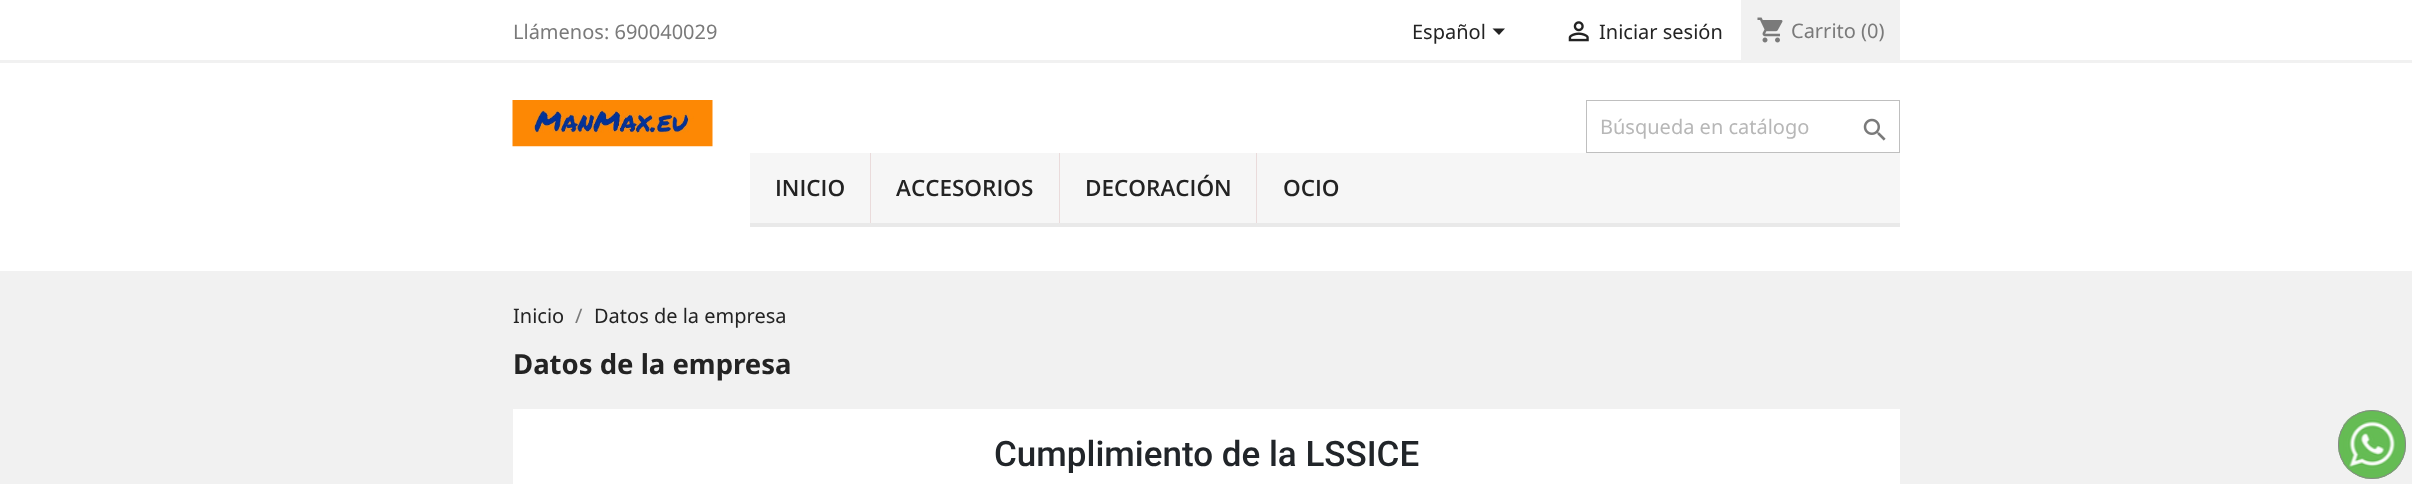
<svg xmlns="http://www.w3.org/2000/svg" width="2412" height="484">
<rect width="100%" height="100%" fill="#fff"/>
<rect y="60" width="2412" height="3" fill="#f1f1f1"/>
<text x="513" y="39" style="font-family:Noto Sans;font-size:20px;fill:#7a7a7a">Llámenos: 690040029</text>
<text x="1412" y="39" style="font-family:Noto Sans;font-size:20px;fill:#232323">Español</text>
<path d="M1492.5 28.5h12.5l-6 6.5z" fill="#232323"/>
<image x="1568" y="21" width="21" height="21" href="media/1.png"/>
<text x="1599" y="39" style="font-family:Noto Sans;font-size:20px;fill:#232323">Iniciar sesión</text>
<rect x="1741" width="159" height="60" fill="#f1f1f1"/>
<image x="1757" y="17" width="26" height="26" href="media/2.png"/>
<text x="1791" y="38" style="font-family:Noto Sans;font-size:20px;fill:#7a7a7a">Carrito (0)</text>
<image x="512" y="100" width="201" height="47" href="media/3.png"/>
<rect x="1586.5" y="100.5" width="313" height="52" fill="none" stroke="#bfbfbf"/>
<text x="1600" y="134" style="font-family:Noto Sans;font-size:20px;fill:#b7b7b7">Búsqueda en catálogo</text>
<image x="1863" y="118" width="23" height="23" href="media/4.png"/>
<rect x="750" y="153" width="1150" height="70" fill="#f6f6f6"/>
<rect x="750" y="223" width="1150" height="4" fill="#e9e9e9"/>
<rect x="870" y="153" width="1" height="70" fill="#eadbdb"/>
<text x="775" y="196" style="font-family:Open Sans;font-size:22.5px;font-weight:600;fill:#232323">INICIO</text>
<rect x="1059" y="153" width="1" height="70" fill="#eadbdb"/>
<text x="896" y="196" style="font-family:Open Sans;font-size:22.5px;font-weight:600;fill:#232323">ACCESORIOS</text>
<rect x="1256" y="153" width="1" height="70" fill="#eadbdb"/>
<text x="1085" y="196" style="font-family:Open Sans;font-size:22.5px;font-weight:600;fill:#232323">DECORACIÓN</text>
<text x="1283" y="196" style="font-family:Open Sans;font-size:22.5px;font-weight:600;fill:#232323">OCIO</text>
<rect y="271" width="2412" height="213" fill="#f1f1f1"/>
<text x="513" y="323" style="font-family:Noto Sans;font-size:20px;fill:#232323">Inicio</text>
<text x="575" y="323" style="font-family:Noto Sans;font-size:20px;fill:#7a7a7a">/</text>
<text x="594" y="323" style="font-family:Noto Sans;font-size:20px;fill:#232323">Datos de la empresa</text>
<text x="513" y="374" style="font-family:Noto Sans;font-size:27.5px;font-weight:bold;fill:#232323">Datos de la empresa</text>
<rect x="513" y="409" width="1387" height="75" fill="#fff"/>
<text x="994" y="466" style="font-family:Roboto;font-size:35px;font-weight:500;fill:#212529">Cumplimiento de la LSSICE</text>
<rect x="2338" y="410" width="68" height="69" rx="34" fill="#65bc54"/>
<image x="2343" y="416" width="58" height="57" href="media/5.png"/>
<rect x="2338.5" y="410.5" width="67" height="68" rx="33.5" fill="none" stroke="#888"/>
</svg>
